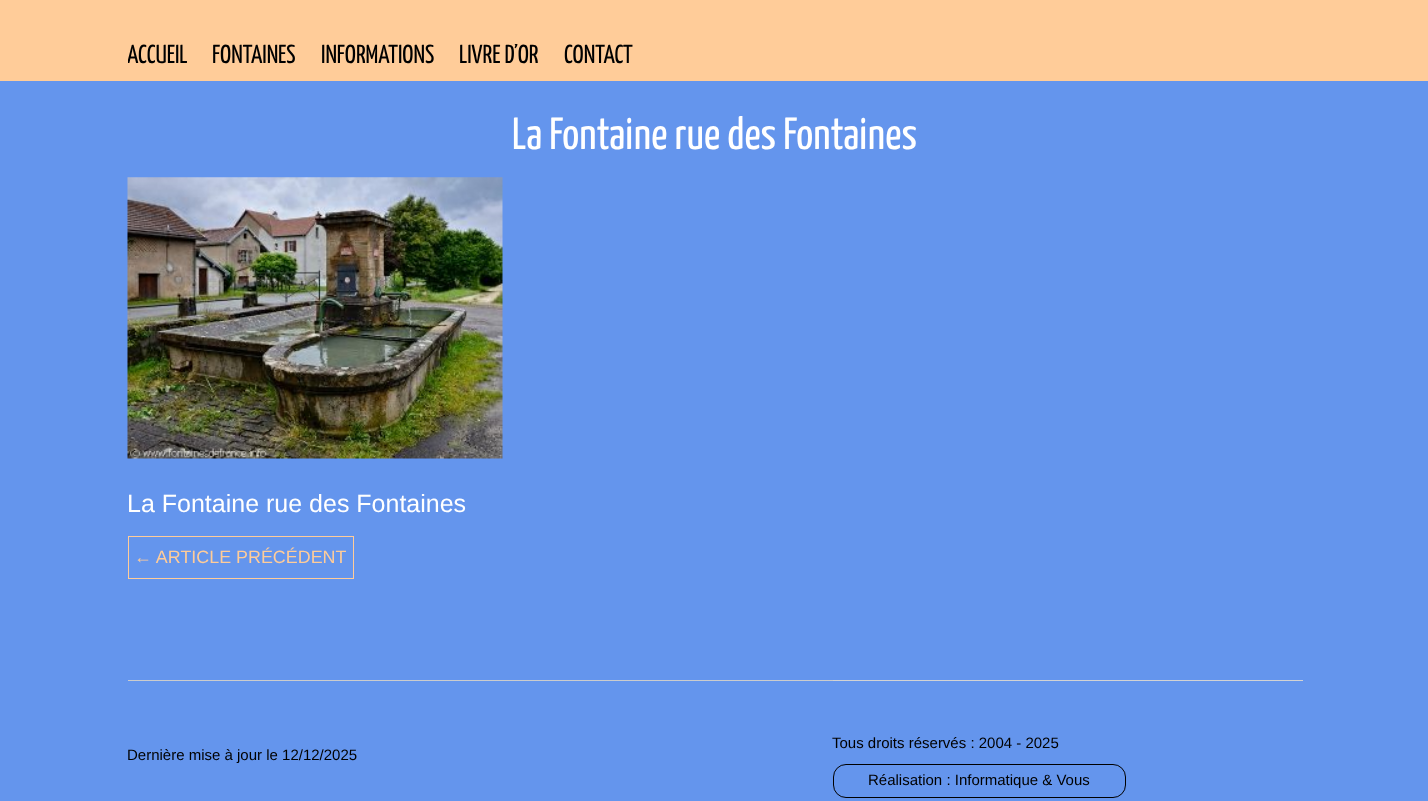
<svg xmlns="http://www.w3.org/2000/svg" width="1428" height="801">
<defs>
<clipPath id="clip1"><rect x="128" y="44" width="60" height="34"/></clipPath>
<clipPath id="clip2"><rect x="459" y="44" width="80" height="34"/></clipPath>
</defs>
<rect width="100%" height="100%" fill="#6495ed"/>
<rect width="1428" height="81" fill="#fc9"/>
<g clip-path="url(#clip1)">
<text x="127" y="63" style="font-family:Yanone Kaffeesatz;font-size:26px;fill:#000">ACCUEIL</text>
</g>
<text x="212" y="63" style="font-family:Yanone Kaffeesatz;font-size:26px;fill:#000">FONTAINES</text>
<text x="321" y="63" style="font-family:Yanone Kaffeesatz;font-size:26px;fill:#000">INFORMATIONS</text>
<g clip-path="url(#clip2)">
<text x="459" y="63" style="font-family:Yanone Kaffeesatz;font-size:26px;fill:#000">LIVRE D’OR</text>
</g>
<text x="564" y="63" style="font-family:Yanone Kaffeesatz;font-size:26px;fill:#000">CONTACT</text>
<text x="512" y="149" style="font-family:Yanone Kaffeesatz;font-size:45px;fill:#fff">La Fontaine rue des Fontaines</text>
<image x="127" y="177" width="376" height="282" href="media/1.png"/>
<text x="127" y="512" style="font-family:Liberation Sans;font-size:25px;fill:#fff">La Fontaine rue des Fontaines</text>
<rect x="128.5" y="536.5" width="225" height="42" fill="none" stroke="#fc9"/>
<text x="134" y="563" style="font-family:Liberation Sans;font-size:17.9px;fill:#fc9">← ARTICLE PRÉCÉDENT</text>
<rect x="128" y="680" width="705" height="1" fill="#ccc"/>
<text x="127" y="760" style="font-family:Liberation Sans;font-size:15px;fill:#000">Dernière mise à jour le 12/12/2025</text>
<rect x="833" y="680" width="470" height="1" fill="#d3d3d3"/>
<text x="832" y="748" style="font-family:Liberation Sans;font-size:15px;fill:#000">Tous droits réservés : 2004 - 2025</text>
<rect x="833.5" y="764.5" width="292" height="33" rx="12.5" fill="none" stroke="#000"/>
<text x="868" y="785" style="font-family:Liberation Sans;font-size:15px;fill:#000">Réalisation : Informatique &amp; Vous</text>
</svg>
